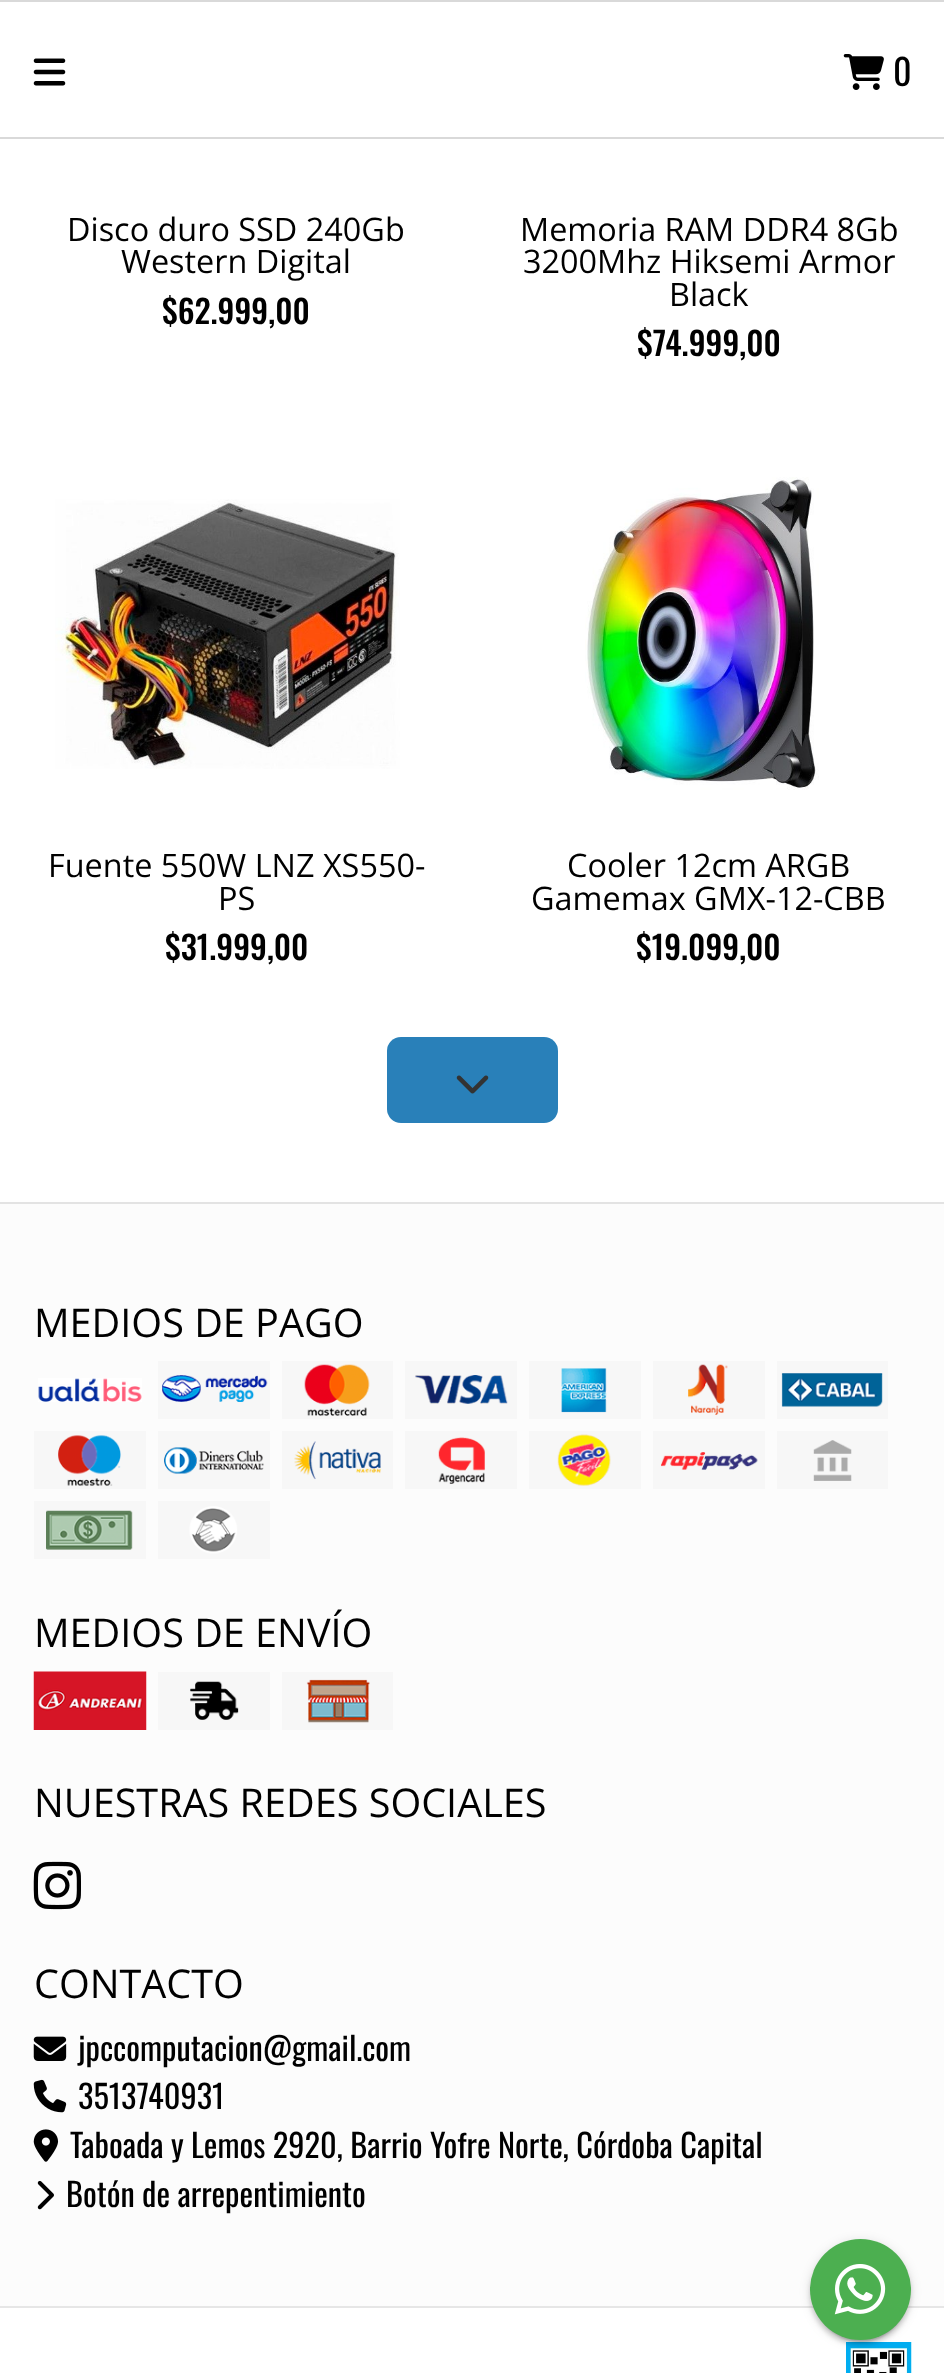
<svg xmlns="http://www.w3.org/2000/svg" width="944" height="2373">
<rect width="100%" height="100%" fill="#fff"/>
<rect width="944" height="2" fill="#d9d9d9"/>
<rect y="137" width="944" height="2" fill="#d9d9d9"/>
<image x="33" y="58" width="33" height="28" href="media/1.png"/>
<image x="843" y="54" width="41" height="36" href="media/2.png"/>
<text x="893" y="86" style="font-family:Oswald;font-size:36px;fill:#000">0</text>
<text x="67" y="241" style="font-family:Open Sans;font-size:32.4px;fill:#000">Disco duro SSD 240Gb</text>
<text x="121" y="273" style="font-family:Open Sans;font-size:32.4px;fill:#000">Western Digital</text>
<text x="162" y="324" style="font-family:Oswald;font-size:32.4px;font-weight:500;fill:#000">$62.999,00</text>
<text x="520" y="241" style="font-family:Open Sans;font-size:32.4px;fill:#000">Memoria RAM DDR4 8Gb</text>
<text x="523" y="273" style="font-family:Open Sans;font-size:32.4px;fill:#000">3200Mhz Hiksemi Armor</text>
<text x="669" y="306" style="font-family:Open Sans;font-size:32.4px;fill:#000">Black</text>
<text x="637" y="356" style="font-family:Oswald;font-size:32.4px;font-weight:500;fill:#000">$74.999,00</text>
<image x="55" y="499" width="345" height="270" href="media/3.png"/>
<text x="48" y="877" style="font-family:Open Sans;font-size:32.4px;fill:#000">Fuente 550W LNZ XS550-</text>
<text x="218" y="910" style="font-family:Open Sans;font-size:32.4px;fill:#000">PS</text>
<text x="165" y="960" style="font-family:Oswald;font-size:32.4px;font-weight:500;fill:#000">$31.999,00</text>
<image x="585" y="477" width="234" height="313" href="media/4.png"/>
<text x="567" y="877" style="font-family:Open Sans;font-size:32.4px;fill:#000">Cooler 12cm ARGB</text>
<text x="531" y="910" style="font-family:Open Sans;font-size:32.4px;fill:#000">Gamemax GMX-12-CBB</text>
<text x="636" y="960" style="font-family:Oswald;font-size:32.4px;font-weight:500;fill:#000">$19.099,00</text>
<rect x="387" y="1037" width="171" height="86" rx="14" fill="#2980b9"/>
<image x="456" y="1075" width="33" height="19" href="media/5.png"/>
<rect y="1204" width="944" height="1102" fill="#fcfcfc"/>
<rect y="1202" width="944" height="2" fill="#e3e3e3"/>
<text x="34" y="1337" style="font-family:Open Sans;font-size:39.6px;fill:#000">MEDIOS DE PAGO</text>
<image x="38" y="1378" width="104" height="24" href="media/6.png"/>
<image x="158" y="1361" width="112" height="58" href="media/7.png"/>
<image x="282" y="1361" width="111" height="58" href="media/8.png"/>
<image x="405" y="1361" width="112" height="58" href="media/9.png"/>
<image x="529" y="1361" width="112" height="58" href="media/10.png"/>
<image x="653" y="1361" width="112" height="58" href="media/11.png"/>
<image x="777" y="1361" width="111" height="58" href="media/12.png"/>
<image x="34" y="1431" width="112" height="58" href="media/13.png"/>
<image x="158" y="1431" width="112" height="58" href="media/14.png"/>
<image x="282" y="1431" width="111" height="58" href="media/15.png"/>
<image x="405" y="1431" width="112" height="58" href="media/16.png"/>
<image x="529" y="1431" width="112" height="58" href="media/17.png"/>
<image x="653" y="1431" width="112" height="58" href="media/18.png"/>
<image x="777" y="1431" width="111" height="58" href="media/19.png"/>
<image x="34" y="1501" width="112" height="58" href="media/20.png"/>
<image x="158" y="1501" width="112" height="58" href="media/21.png"/>
<text x="34" y="1647" style="font-family:Open Sans;font-size:39.6px;fill:#000">MEDIOS DE ENVÍO</text>
<image x="33" y="1671" width="114" height="59" href="media/22.png"/>
<image x="158" y="1672" width="112" height="58" href="media/23.png"/>
<image x="282" y="1672" width="111" height="58" href="media/24.png"/>
<text x="34" y="1817" style="font-family:Open Sans;font-size:39.6px;fill:#000">NUESTRAS REDES SOCIALES</text>
<image x="33" y="1861" width="48" height="49" href="media/25.png"/>
<text x="34" y="1998" style="font-family:Open Sans;font-size:39.6px;fill:#000">CONTACTO</text>
<image x="33" y="2036" width="34" height="25" href="media/26.png"/>
<text x="78" y="2061" style="font-family:Oswald;font-size:32.4px;fill:#000">jpccomputacion@gmail.com</text>
<image x="33" y="2079" width="34" height="34" href="media/27.png"/>
<text x="78" y="2109" style="font-family:Oswald;font-size:32.4px;fill:#000">3513740931</text>
<image x="33" y="2129" width="26" height="33" href="media/28.png"/>
<text x="70" y="2158" style="font-family:Oswald;font-size:32.4px;fill:#000">Taboada y Lemos 2920, Barrio Yofre Norte, Córdoba Capital</text>
<image x="37" y="2180" width="17" height="30" href="media/29.png"/>
<text x="66" y="2207" style="font-family:Oswald;font-size:32.4px;fill:#000">Botón de arrepentimiento</text>
<rect y="2306" width="944" height="2" fill="#e6e6e6"/>
<image x="846" y="2342" width="66" height="31" href="media/30.png"/>
<rect x="815" y="2250" width="92" height="92" rx="46" fill="#00000033" filter="blur(1px)"/>
<rect x="810" y="2241" width="101" height="101" rx="50.5" fill="#0000001f" filter="blur(5.5px)"/>
<rect x="810" y="2243" width="101" height="102" rx="50.5" fill="#00000024" filter="blur(2px)"/>
<circle cx="860.5" cy="2289.5" r="50.5" fill="#4caf50"/>
<image x="834" y="2264" width="52" height="51" href="media/31.png"/>
</svg>
